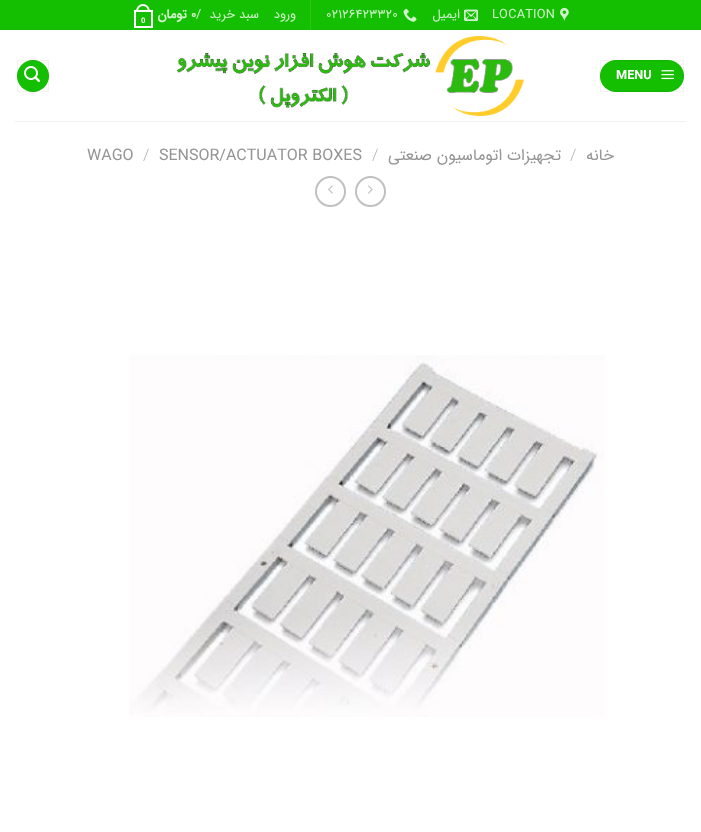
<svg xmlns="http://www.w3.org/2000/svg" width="701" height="832">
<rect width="100%" height="100%" fill="#fff"/>
<rect width="701" height="30" fill="#14be00"/>
<rect x="135" y="11" width="17" height="16" fill="none" stroke="#fff" stroke-width="2"/>
<path d="M143 4c4.5 0 7 4 7 8h-14c0-4 2.5-8 7-8zm0 2c3.5 0 5 3 5 6h-10c0-3 1.5-6 5-6z" fill="#fff" fill-rule="evenodd"/>
<text x="141" y="23" style="font-family:Liberation Sans;font-size:8px;font-weight:bold;fill:#fff">0</text>
<text x="187" y="18" style="font-family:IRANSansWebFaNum;font-size:12.75px;font-weight:bold;direction:rtl;fill:#d0f2cc">تومان</text>
<text x="191" y="18" style="font-family:IRANSansWebFaNum;font-size:12.75px;font-weight:bold;fill:#d0f2cc">0</text>
<text x="196" y="18" style="font-family:IRANSansWebFaNum;font-size:12.75px;fill:#d0f2cc">/</text>
<text x="259" y="18" style="font-family:IRANSansWebFaNum;font-size:12.75px;direction:rtl;fill:#d0f2cc">سبد خرید</text>
<text x="296" y="18" style="font-family:IRANSansWebFaNum;font-size:12.75px;direction:rtl;fill:#d0f2cc">ورود</text>
<rect x="310" width="1" height="30" fill="#2cc51a"/>
<text x="326" y="18" style="font-family:IRANSansWebFaNum;font-size:12.75px;letter-spacing:0.25px;fill:#d0f2cc">02126423320</text>
<image x="403" y="8" width="14" height="14" href="media/1.png"/>
<text x="460" y="18" style="font-family:IRANSansWebFaNum;font-size:12.75px;letter-spacing:0.25px;direction:rtl;fill:#d0f2cc">ایمیل</text>
<image x="464" y="9" width="14" height="12" href="media/2.png"/>
<text x="492" y="18" style="font-family:IRANSansWebFaNum;font-size:12.75px;letter-spacing:0.25px;fill:#d0f2cc">LOCATION</text>
<image x="560" y="7" width="9" height="15" href="media/3.png"/>
<circle cx="33" cy="76" r="16" fill="#14be00"/>
<rect x="17.5" y="60.5" width="31" height="31" fill="none" stroke="#0000000d"/>
<image x="24" y="66" width="16" height="16" href="media/4.png"/>
<image x="177" y="36" width="347" height="80" href="media/5.png"/>
<rect x="600" y="60" width="84" height="32" rx="16" fill="#14be00"/>
<rect x="600.5" y="60.5" width="83" height="31" fill="none" stroke="#0000000d"/>
<text x="616" y="79" style="font-family:IRANSansWebFaNum;font-size:12.75px;font-weight:bold;fill:#fff">MENU</text>
<image x="661" y="70" width="13" height="10" href="media/6.png"/>
<rect x="15" y="121" width="671" height="1" fill="#f1f1f1"/>
<text x="87" y="160" style="font-family:IRANSansWebFaNum;font-size:16px;fill:#949494">WAGO</text>
<text x="143" y="160" style="font-family:IRANSansWebFaNum;font-size:16px;font-weight:300;fill:#b2b2b2">/</text>
<text x="159" y="160" style="font-family:IRANSansWebFaNum;font-size:16px;fill:#949494">SENSOR/ACTUATOR BOXES</text>
<text x="372" y="160" style="font-family:IRANSansWebFaNum;font-size:16px;font-weight:300;fill:#b2b2b2">/</text>
<text x="561" y="160" style="font-family:IRANSansWebFaNum;font-size:16px;direction:rtl;fill:#949494">تجهیزات اتوماسیون صنعتی</text>
<text x="570" y="160" style="font-family:IRANSansWebFaNum;font-size:16px;font-weight:300;fill:#b2b2b2">/</text>
<text x="614" y="160" style="font-family:IRANSansWebFaNum;font-size:16px;direction:rtl;fill:#949494">خانه</text>
<circle cx="330.5" cy="191.5" r="14.5" fill="none" stroke="#c0c0c0" stroke-width="2"/>
<image x="328" y="185" width="5" height="9" href="media/7.png"/>
<circle cx="370.5" cy="191.5" r="14.5" fill="none" stroke="#c0c0c0" stroke-width="2"/>
<image x="368" y="185" width="5" height="9" href="media/8.png"/>
<image x="129" y="355" width="476" height="362" href="media/9.png"/>
</svg>
